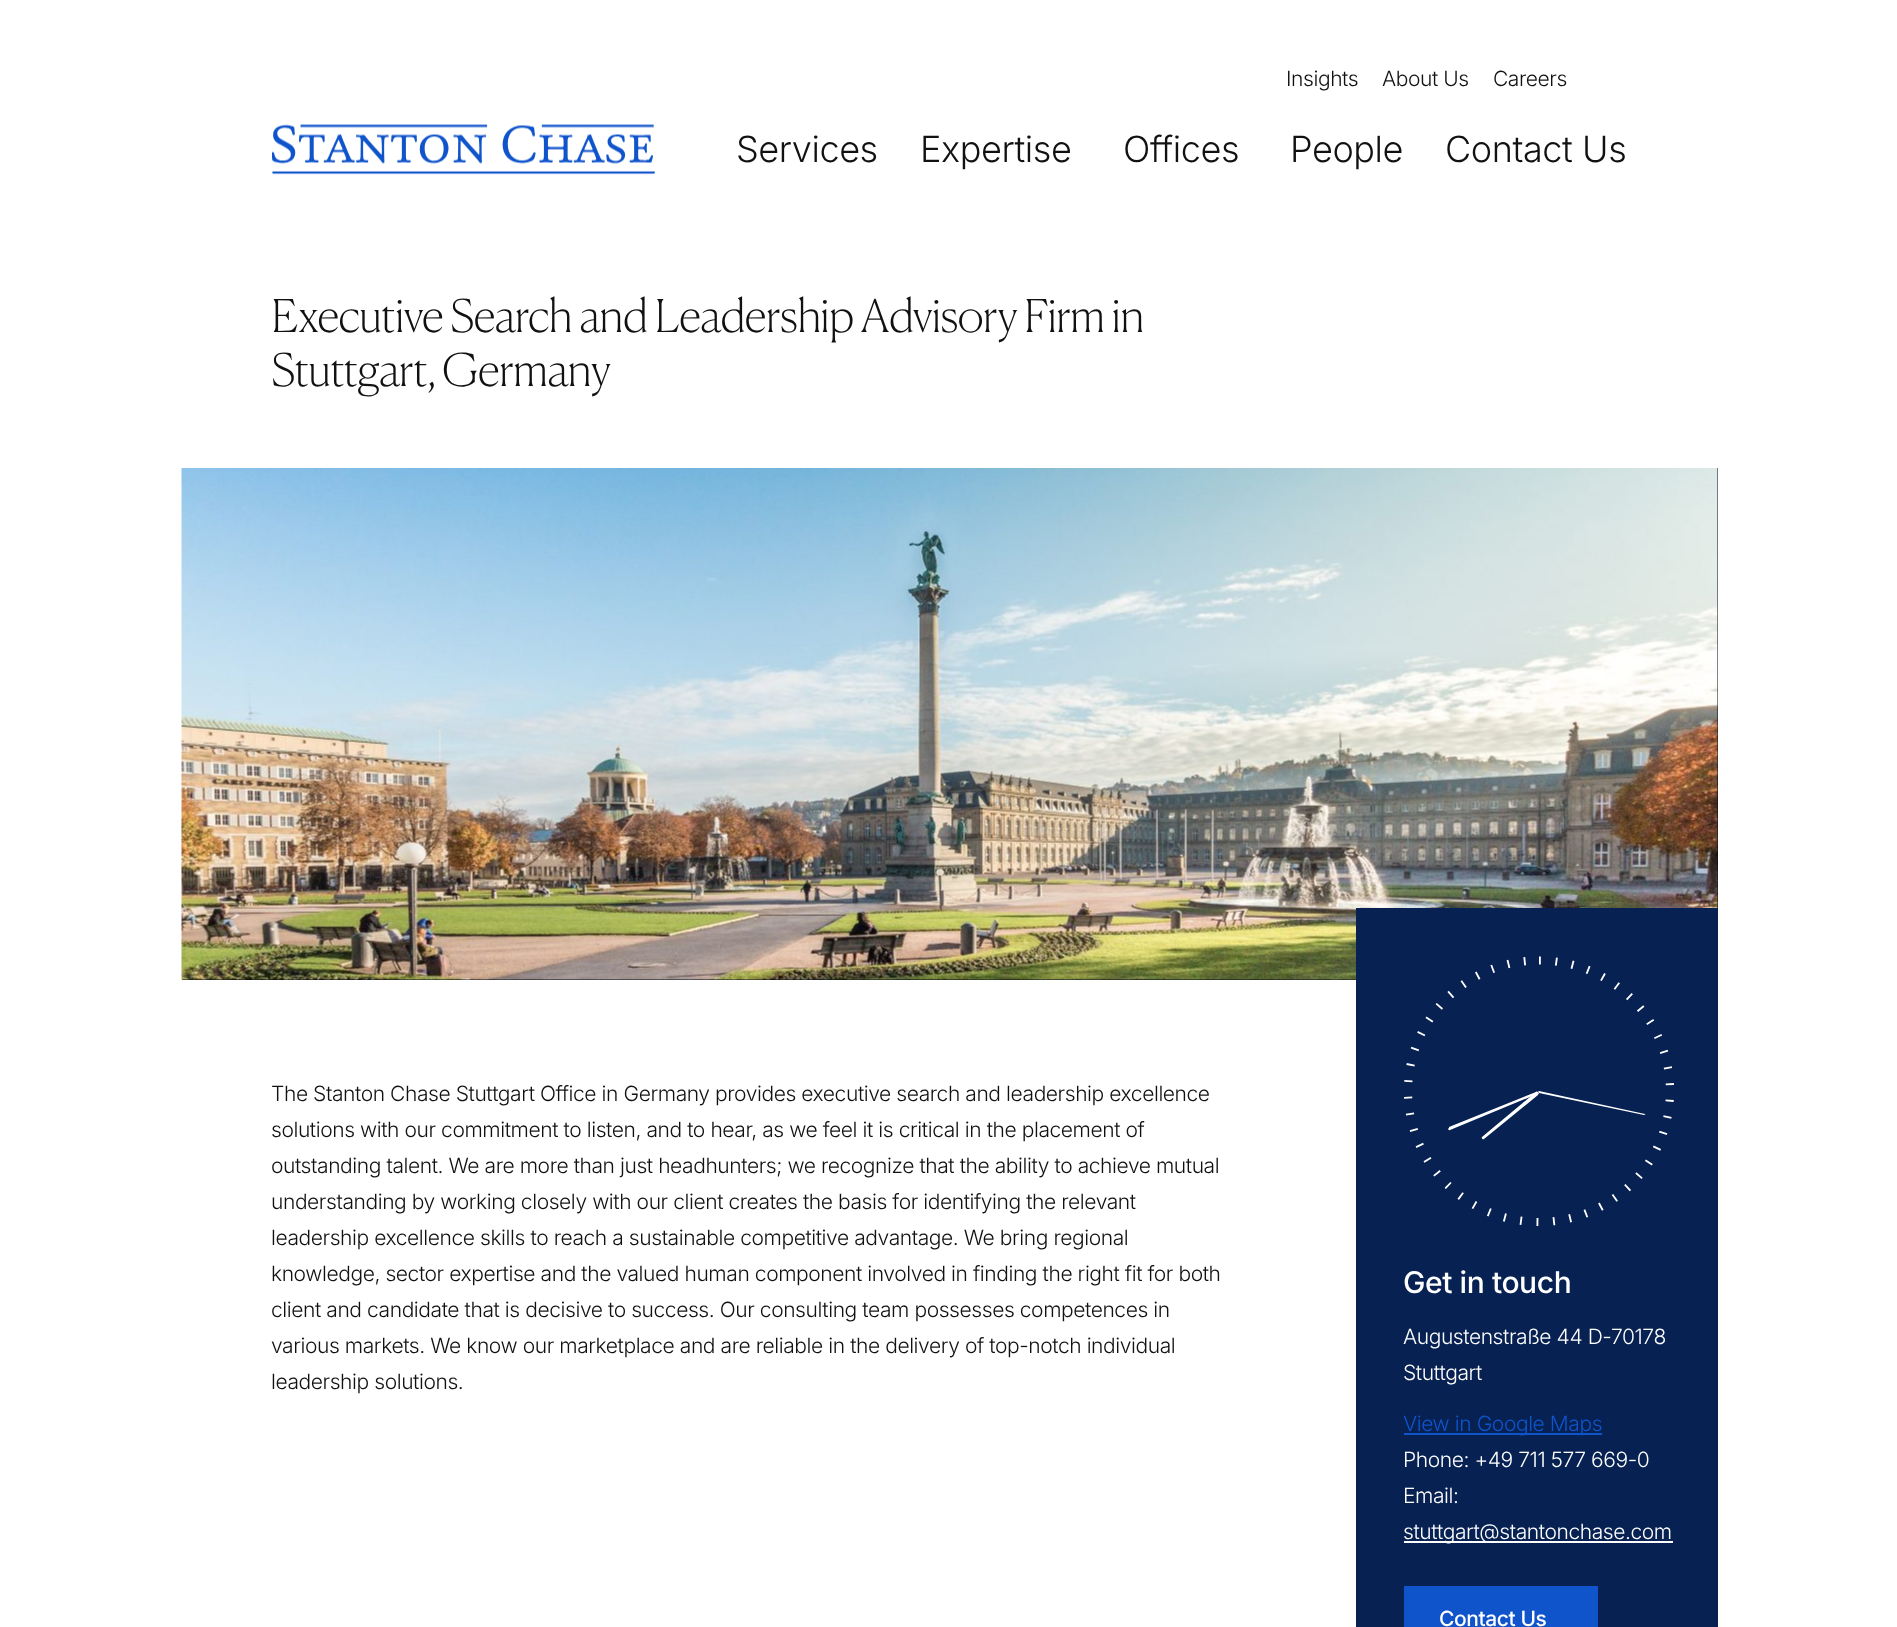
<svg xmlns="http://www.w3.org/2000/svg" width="1897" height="1627">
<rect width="100%" height="100%" fill="#fff"/>
<image x="272" y="124" width="383" height="51" href="media/1.png"/>
<text x="1286" y="86" style="font-family:Inter;font-size:21px;font-weight:300;letter-spacing:-0.42px;fill:#111">Insights</text>
<text x="1382" y="86" style="font-family:Inter;font-size:21px;font-weight:300;letter-spacing:-0.42px;fill:#111">About Us</text>
<text x="1493" y="86" style="font-family:Inter;font-size:21px;font-weight:300;letter-spacing:-0.42px;fill:#111">Careers</text>
<text x="736" y="162" style="font-family:Inter;font-size:36px;font-weight:300;letter-spacing:-0.42px;fill:#111">Services</text>
<text x="920" y="162" style="font-family:Inter;font-size:36px;font-weight:300;letter-spacing:-0.42px;fill:#111">Expertise</text>
<text x="1123" y="162" style="font-family:Inter;font-size:36px;font-weight:300;letter-spacing:-0.42px;fill:#111">Offices</text>
<text x="1290" y="162" style="font-family:Inter;font-size:36px;font-weight:300;letter-spacing:-0.42px;fill:#111">People</text>
<text x="1445" y="162" style="font-family:Inter;font-size:36px;font-weight:300;letter-spacing:-0.42px;fill:#111">Contact Us</text>
<text x="271" y="332" style="font-family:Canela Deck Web;font-size:45px;font-weight:100;letter-spacing:-1.35px;fill:#111">Executive Search and Leadership Advisory Firm in</text>
<text x="271" y="386" style="font-family:Canela Deck Web;font-size:45px;font-weight:100;letter-spacing:-1.35px;fill:#111">Stuttgart, Germany</text>
<rect x="182" y="468" width="1536" height="512" fill="#020a1a"/>
<image x="181" y="468" width="1537" height="512" href="media/2.png"/>
<text x="271" y="1101" style="font-family:Inter;font-size:21px;font-weight:300;letter-spacing:-0.42px;fill:#111">The Stanton Chase Stuttgart Office in Germany provides executive search and leadership excellence</text>
<text x="271" y="1137" style="font-family:Inter;font-size:21px;font-weight:300;letter-spacing:-0.42px;fill:#111">solutions with our commitment to listen, and to hear, as we feel it is critical in the placement of</text>
<text x="271" y="1173" style="font-family:Inter;font-size:21px;font-weight:300;letter-spacing:-0.42px;fill:#111">outstanding talent. We are more than just headhunters; we recognize that the ability to achieve mutual</text>
<text x="271" y="1209" style="font-family:Inter;font-size:21px;font-weight:300;letter-spacing:-0.42px;fill:#111">understanding by working closely with our client creates the basis for identifying the relevant</text>
<text x="271" y="1245" style="font-family:Inter;font-size:21px;font-weight:300;letter-spacing:-0.42px;fill:#111">leadership excellence skills to reach a sustainable competitive advantage. We bring regional</text>
<text x="271" y="1281" style="font-family:Inter;font-size:21px;font-weight:300;letter-spacing:-0.42px;fill:#111">knowledge, sector expertise and the valued human component involved in finding the right fit for both</text>
<text x="271" y="1317" style="font-family:Inter;font-size:21px;font-weight:300;letter-spacing:-0.42px;fill:#111">client and candidate that is decisive to success. Our consulting team possesses competences in</text>
<text x="271" y="1353" style="font-family:Inter;font-size:21px;font-weight:300;letter-spacing:-0.42px;fill:#111">various markets. We know our marketplace and are reliable in the delivery of top-notch individual</text>
<text x="271" y="1389" style="font-family:Inter;font-size:21px;font-weight:300;letter-spacing:-0.42px;fill:#111">leadership solutions.</text>
<rect x="1356" y="908" width="362" height="719" fill="#062152"/>
<path d="M1539 960.5c72.5 0 131 58.5 131 130.5c0 72.5-58.5 131-131 131c-72.5 0-131-58.5-131-131c0-72 58.5-130.5 131-130.5z" fill="none" stroke="#fff" stroke-width="8.2" stroke-dasharray="1.83 14.64"/>
<path d="M1644 1115l-105-22c-1-1-1-2 0-2l106 23c1 0 0 1-1 1z" fill="#fff"/>
<path d="M1482 1137l54-45c1 0 2 0 3 1l-1 2l-54 44c-1 1-3-1-2-2z" fill="#fff"/>
<path d="M1449 1127l87-35c1-1 2 0 2 1l-1 1l-87 36c-1 1-3-1-1-2z" fill="#fff"/>
<text x="1403" y="1293" style="font-family:Inter;font-size:30px;font-weight:500;letter-spacing:-0.42px;fill:#fff">Get in touch</text>
<text x="1403" y="1344" style="font-family:Inter;font-size:21px;font-weight:300;letter-spacing:-0.42px;fill:#fff">Augustenstraße 44 D-70178</text>
<text x="1403" y="1380" style="font-family:Inter;font-size:21px;font-weight:300;letter-spacing:-0.42px;fill:#fff">Stuttgart</text>
<rect x="1404" y="1433" width="198" height="2" fill="#1054cc"/>
<text x="1403" y="1431" style="font-family:Inter;font-size:21px;font-weight:300;letter-spacing:-0.42px;fill:#1054cc">View in Google Maps</text>
<text x="1403" y="1467" style="font-family:Inter;font-size:21px;font-weight:300;letter-spacing:-0.42px;fill:#fff">Phone: +49 711 577 669-0</text>
<text x="1403" y="1503" style="font-family:Inter;font-size:21px;font-weight:300;letter-spacing:-0.42px;fill:#fff">Email:</text>
<rect x="1404" y="1541" width="269" height="2" fill="#fff"/>
<text x="1403" y="1539" style="font-family:Inter;font-size:21px;font-weight:300;letter-spacing:-0.42px;fill:#fff">stuttgart@stantonchase.com</text>
<rect x="1404" y="1586" width="194" height="41" fill="#1054cc"/>
<text x="1439" y="1626" style="font-family:Inter;font-size:21px;font-weight:500;letter-spacing:-0.42px;fill:#fff">Contact Us</text>
</svg>
